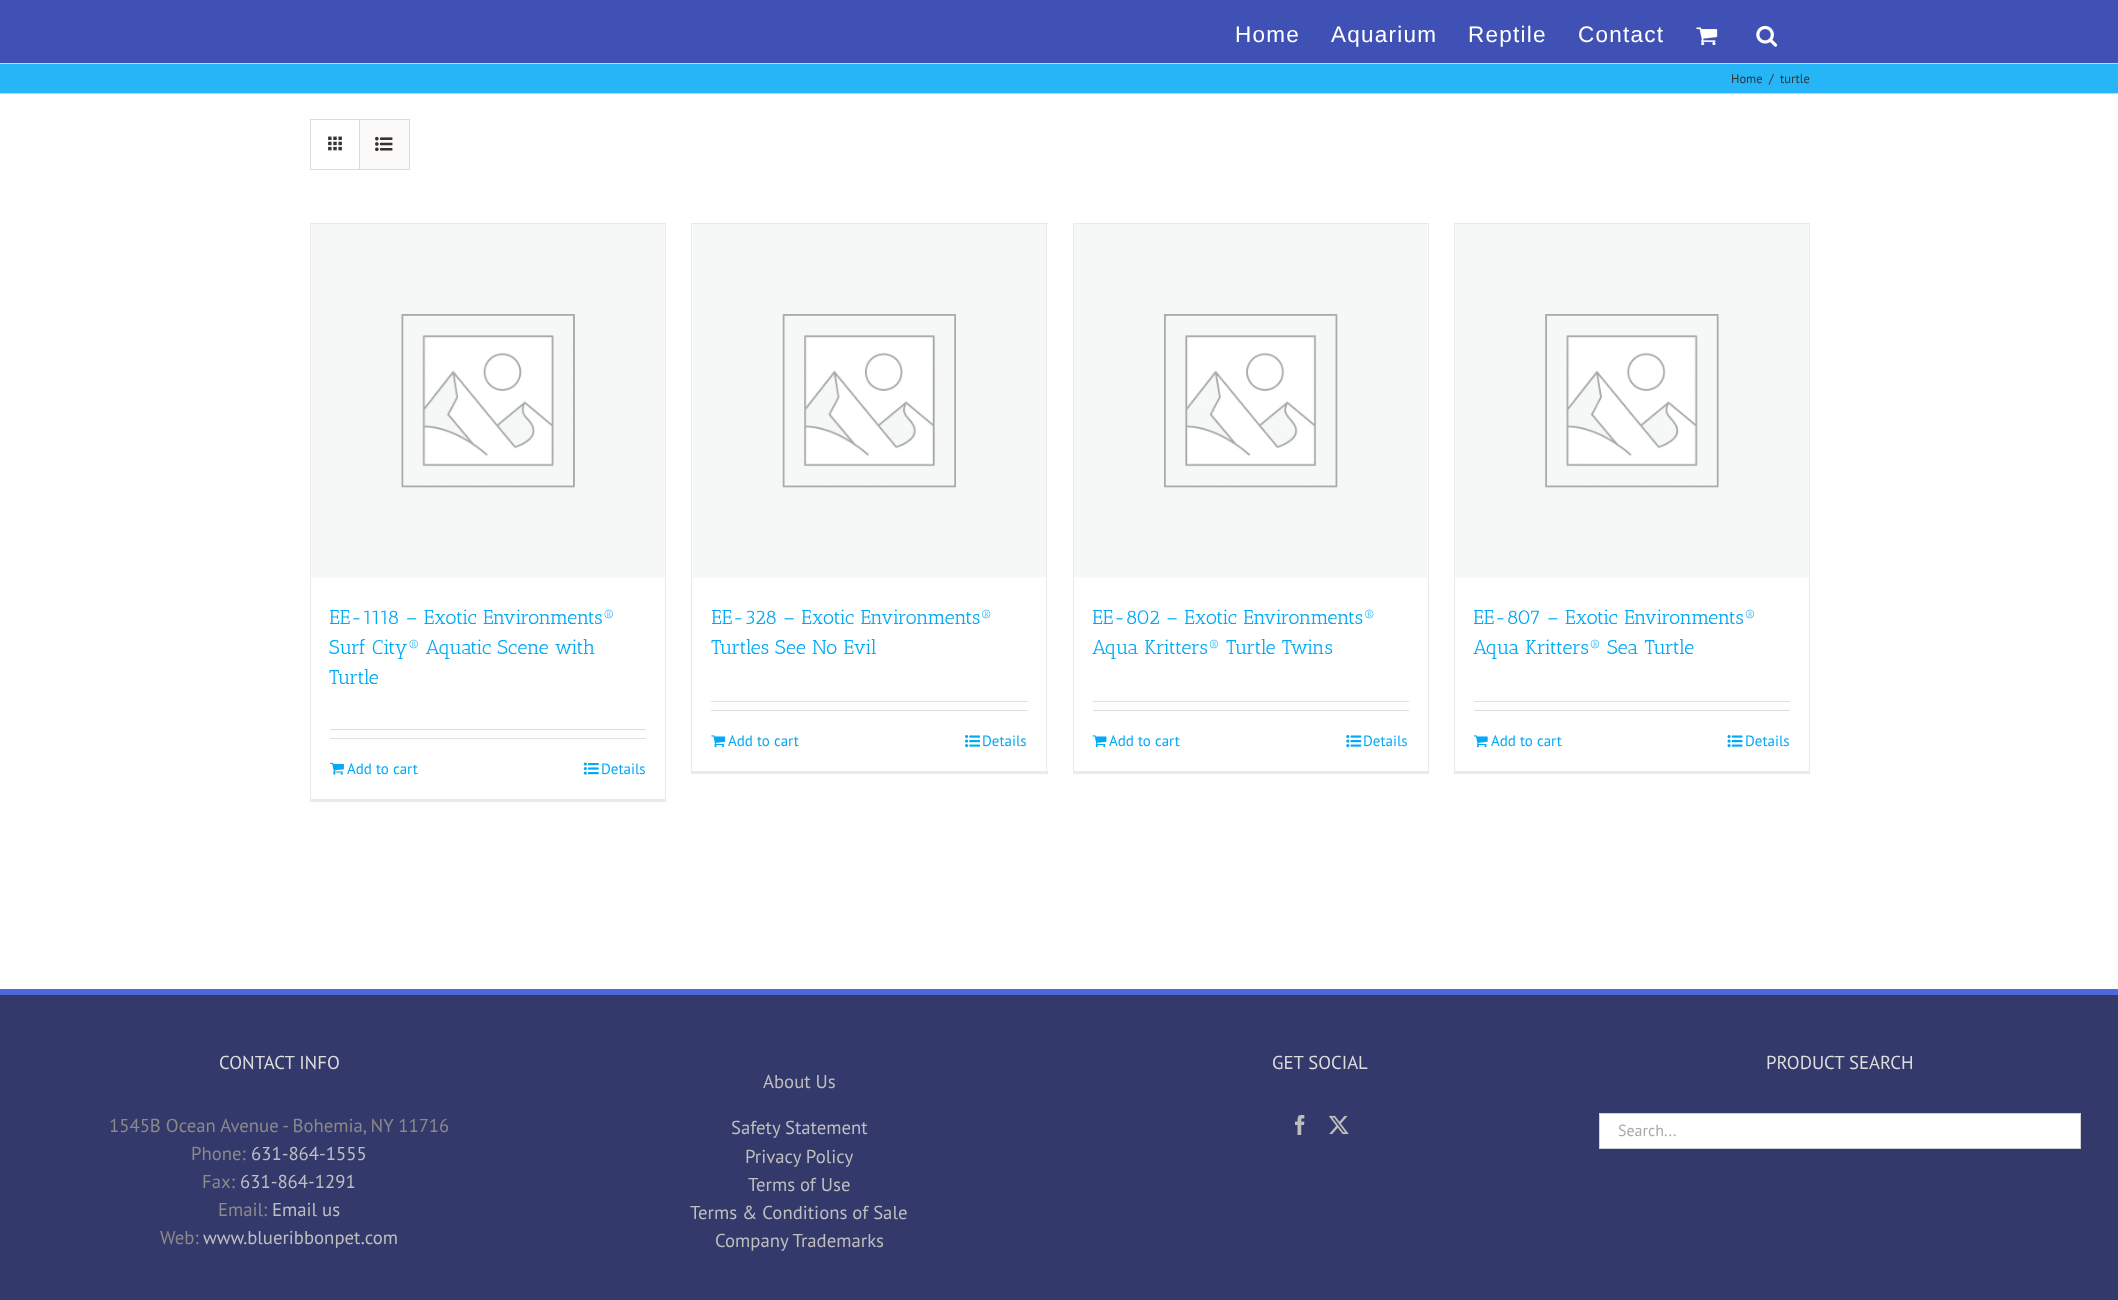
<svg xmlns="http://www.w3.org/2000/svg" width="2118" height="1300">
<rect width="100%" height="100%" fill="#fff"/>
<rect width="2118" height="63" fill="#3f51b5"/>
<text x="1235" y="42" style="font-family:Liberation Sans;font-size:22.5px;letter-spacing:1.25px;fill:#fff">Home</text>
<text x="1331" y="42" style="font-family:Liberation Sans;font-size:22.5px;letter-spacing:1.25px;fill:#fff">Aquarium</text>
<text x="1468" y="42" style="font-family:Liberation Sans;font-size:22.5px;letter-spacing:1.25px;fill:#fff">Reptile</text>
<text x="1578" y="42" style="font-family:Liberation Sans;font-size:22.5px;letter-spacing:1.25px;fill:#fff">Contact</text>
<image x="1696" y="27" width="22" height="19" href="media/1.png"/>
<image x="1756" y="25" width="22" height="22" href="media/2.png"/>
<rect y="64" width="2118" height="29" fill="#26b5f6"/>
<rect y="63" width="2118" height="1" fill="#d2d3d4"/>
<rect y="93" width="2118" height="1" fill="#d2d3d4"/>
<text x="1731" y="83" style="font-family:PT Sans;font-size:12.5px;fill:#333">Home</text>
<text x="1769" y="83" style="font-family:PT Sans;font-size:12.5px;fill:#333">/</text>
<text x="1780" y="83" style="font-family:PT Sans;font-size:12.5px;fill:#333">turtle</text>
<rect x="310.5" y="119.5" width="99" height="50" fill="none" stroke="#dbdbdb"/>
<rect x="359" y="120" width="1" height="49" fill="#dbdbdb"/>
<image x="328" y="136" width="14" height="15" href="media/3.png"/>
<rect x="360" y="120" width="49" height="49" fill="#fbfaf9"/>
<image x="375" y="136" width="18" height="16" href="media/4.png"/>
<rect x="310" y="223" width="356" height="1" fill="#ebeaea"/>
<rect x="665" y="223" width="1" height="578" fill="#ebeaea"/>
<rect x="310" y="799" width="356" height="3" fill="#ebeaea"/>
<rect x="310" y="223" width="1" height="578" fill="#ebeaea"/>
<image x="311" y="224" width="354" height="354" href="media/5.png"/>
<text x="329" y="624" style="font-family:Antic Slab;font-size:20px;fill:#03a9f4">EE-1118 – Exotic Environments®</text>
<text x="329" y="654" style="font-family:Antic Slab;font-size:20px;fill:#03a9f4">Surf City® Aquatic Scene with</text>
<text x="329" y="684" style="font-family:Antic Slab;font-size:20px;fill:#03a9f4">Turtle</text>
<rect x="330" y="729" width="316" height="1" fill="#e0dede"/>
<rect x="330" y="738" width="316" height="1" fill="#e0dede"/>
<image x="330" y="762" width="14" height="13" href="media/6.png"/>
<text x="347" y="774" style="font-family:PT Sans;font-size:15px;fill:#03a9f4">Add to cart</text>
<image x="583" y="762" width="16" height="13" href="media/7.png"/>
<text x="601" y="774" style="font-family:PT Sans;font-size:15px;fill:#03a9f4">Details</text>
<rect x="691" y="223" width="357" height="1" fill="#ebeaea"/>
<rect x="1046" y="223" width="1" height="551" fill="#ebeaea"/>
<rect x="691" y="771" width="357" height="3" fill="#ebeaea"/>
<rect x="691" y="223" width="1" height="551" fill="#ebeaea"/>
<image x="692" y="224" width="354" height="354" href="media/8.png"/>
<text x="711" y="624" style="font-family:Antic Slab;font-size:20px;fill:#03a9f4">EE-328 – Exotic Environments®</text>
<text x="711" y="654" style="font-family:Antic Slab;font-size:20px;fill:#03a9f4">Turtles See No Evil</text>
<rect x="711" y="701" width="317" height="1" fill="#e0dede"/>
<rect x="711" y="710" width="317" height="1" fill="#e0dede"/>
<image x="711" y="735" width="15" height="13" href="media/9.png"/>
<text x="728" y="746" style="font-family:PT Sans;font-size:15px;fill:#03a9f4">Add to cart</text>
<image x="965" y="735" width="15" height="13" href="media/10.png"/>
<text x="982" y="746" style="font-family:PT Sans;font-size:15px;fill:#03a9f4">Details</text>
<rect x="1073" y="223" width="356" height="1" fill="#ebeaea"/>
<rect x="1428" y="223" width="1" height="551" fill="#ebeaea"/>
<rect x="1073" y="771" width="356" height="3" fill="#ebeaea"/>
<rect x="1073" y="223" width="1" height="551" fill="#ebeaea"/>
<image x="1074" y="224" width="354" height="354" href="media/11.png"/>
<text x="1092" y="624" style="font-family:Antic Slab;font-size:20px;fill:#03a9f4">EE-802 – Exotic Environments®</text>
<text x="1092" y="654" style="font-family:Antic Slab;font-size:20px;fill:#03a9f4">Aqua Kritters® Turtle Twins</text>
<rect x="1093" y="701" width="316" height="1" fill="#e0dede"/>
<rect x="1093" y="710" width="316" height="1" fill="#e0dede"/>
<image x="1092" y="735" width="15" height="13" href="media/12.png"/>
<text x="1109" y="746" style="font-family:PT Sans;font-size:15px;fill:#03a9f4">Add to cart</text>
<image x="1346" y="735" width="16" height="13" href="media/13.png"/>
<text x="1363" y="746" style="font-family:PT Sans;font-size:15px;fill:#03a9f4">Details</text>
<rect x="1454" y="223" width="356" height="1" fill="#ebeaea"/>
<rect x="1809" y="223" width="1" height="551" fill="#ebeaea"/>
<rect x="1454" y="771" width="356" height="3" fill="#ebeaea"/>
<rect x="1454" y="223" width="1" height="551" fill="#ebeaea"/>
<image x="1455" y="224" width="354" height="354" href="media/14.png"/>
<text x="1473" y="624" style="font-family:Antic Slab;font-size:20px;fill:#03a9f4">EE-807 – Exotic Environments®</text>
<text x="1473" y="654" style="font-family:Antic Slab;font-size:20px;fill:#03a9f4">Aqua Kritters® Sea Turtle</text>
<rect x="1474" y="701" width="316" height="1" fill="#e0dede"/>
<rect x="1474" y="710" width="316" height="1" fill="#e0dede"/>
<image x="1473" y="735" width="15" height="13" href="media/15.png"/>
<text x="1491" y="746" style="font-family:PT Sans;font-size:15px;fill:#03a9f4">Add to cart</text>
<image x="1727" y="735" width="16" height="13" href="media/16.png"/>
<text x="1745" y="746" style="font-family:PT Sans;font-size:15px;fill:#03a9f4">Details</text>
<rect y="995" width="2118" height="305" fill="#33396b"/>
<rect y="989" width="2118" height="6" fill="#4d68dd"/>
<text x="219" y="1069" style="font-family:PT Sans;font-size:18.75px;fill:#ddd">CONTACT INFO</text>
<text x="109" y="1132" style="font-family:PT Sans;font-size:18.75px;fill:#8c8989">1545B Ocean Avenue - Bohemia, NY 11716</text>
<text x="191" y="1160" style="font-family:PT Sans;font-size:18.75px;fill:#8c8989">Phone:</text>
<text x="251" y="1160" style="font-family:PT Sans;font-size:18.75px;fill:#bfbfbf">631-864-1555</text>
<text x="202" y="1188" style="font-family:PT Sans;font-size:18.75px;fill:#8c8989">Fax:</text>
<text x="240" y="1188" style="font-family:PT Sans;font-size:18.75px;fill:#bfbfbf">631-864-1291</text>
<text x="218" y="1216" style="font-family:PT Sans;font-size:18.75px;fill:#8c8989">Email:</text>
<text x="272" y="1216" style="font-family:PT Sans;font-size:18.75px;fill:#bfbfbf">Email us</text>
<text x="160" y="1244" style="font-family:PT Sans;font-size:18.75px;fill:#8c8989">Web:</text>
<text x="203" y="1244" style="font-family:PT Sans;font-size:18.75px;fill:#bfbfbf">www.blueribbonpet.com</text>
<text x="763" y="1088" style="font-family:PT Sans;font-size:18.75px;fill:#bfbfbf">About Us</text>
<text x="731" y="1134" style="font-family:PT Sans;font-size:18.75px;fill:#bfbfbf">Safety Statement</text>
<text x="745" y="1163" style="font-family:PT Sans;font-size:18.75px;fill:#bfbfbf">Privacy Policy</text>
<text x="748" y="1191" style="font-family:PT Sans;font-size:18.75px;fill:#bfbfbf">Terms of Use</text>
<text x="690" y="1219" style="font-family:PT Sans;font-size:18.75px;fill:#bfbfbf">Terms &amp; Conditions of Sale</text>
<text x="715" y="1247" style="font-family:PT Sans;font-size:18.75px;fill:#bfbfbf">Company Trademarks</text>
<text x="1272" y="1069" style="font-family:PT Sans;font-size:18.75px;fill:#ddd">GET SOCIAL</text>
<image x="1295" y="1115" width="10" height="20" href="media/17.png"/>
<image x="1329" y="1115" width="20" height="20" href="media/18.png"/>
<text x="1766" y="1069" style="font-family:PT Sans;font-size:18.75px;fill:#ddd">PRODUCT SEARCH</text>
<rect x="1599.5" y="1113.5" width="481" height="35" fill="#fff" stroke="#d2d2d2"/>
<text x="1618" y="1136" style="font-family:PT Sans;font-size:16px;fill:#aaa9a9">Search...</text>
</svg>
